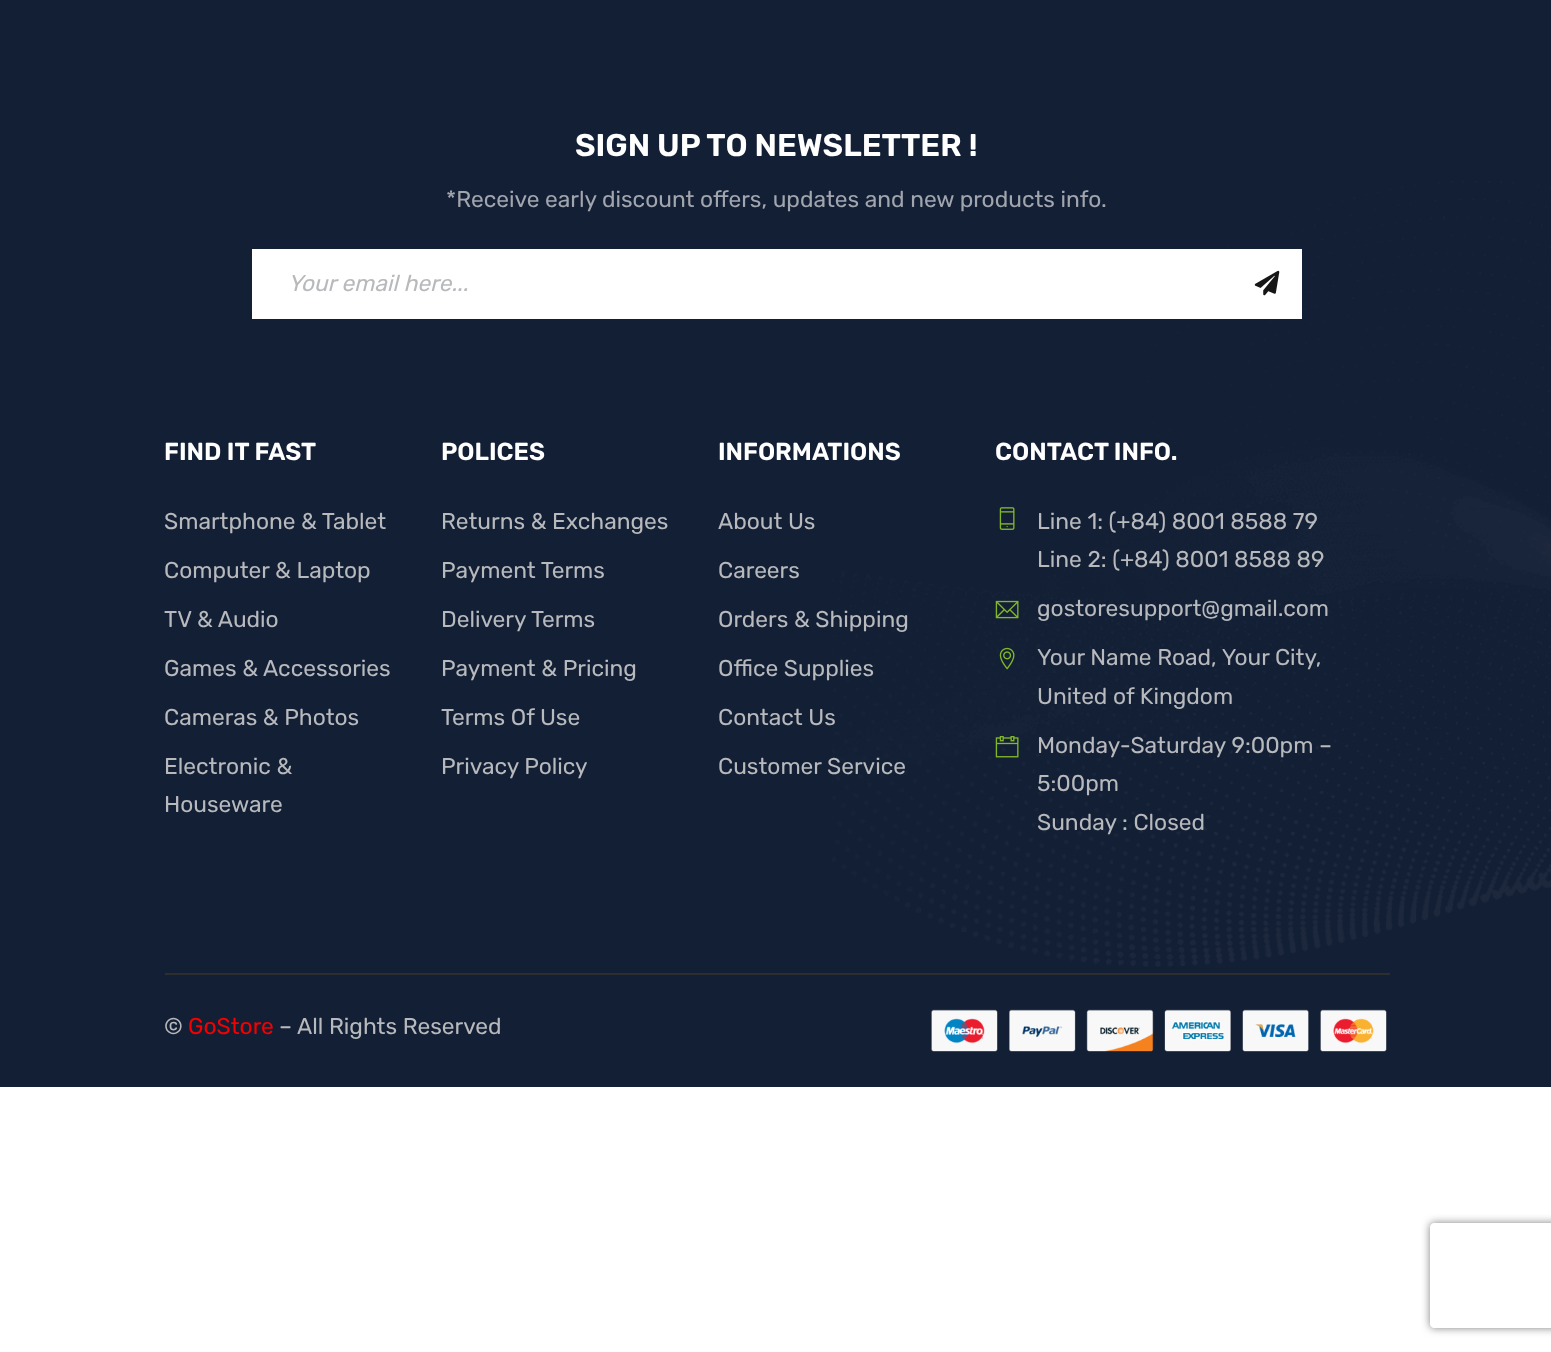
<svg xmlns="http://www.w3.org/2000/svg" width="1551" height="1352">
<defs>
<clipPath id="clip1"><path d="M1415 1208h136v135h-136zm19 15h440c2 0 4 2 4 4v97c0 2-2 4-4 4h-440c-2 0-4-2-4-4v-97c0-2 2-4 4-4z" clip-rule="evenodd"/></clipPath>
</defs>
<rect width="100%" height="100%" fill="#fff"/>
<rect width="1551" height="1087" fill="#131f35"/>
<image x="832" y="181" width="719" height="786" href="media/1.png"/>
<text x="575" y="156" style="font-family:Rubik;font-size:31.5px;font-weight:600;fill:#fff">SIGN UP TO NEWSLETTER !</text>
<text x="446" y="207" style="font-family:Rubik;font-size:22.75px;fill:#a1a5ae">*Receive early discount offers, updates and new products info.</text>
<rect x="252" y="249" width="1050" height="70" fill="#fff"/>
<text x="288" y="291" style="font-family:Rubik;font-size:22.75px;font-style:italic;fill:#b7b9bc">Your email here...</text>
<image x="1254" y="270" width="26" height="26" href="media/2.png"/>
<text x="164" y="460" style="font-family:Rubik;font-size:24.5px;font-weight:600;fill:#fff">FIND IT FAST</text>
<text x="164" y="529" style="font-family:Rubik;font-size:22.75px;fill:#b7b9bc">Smartphone &amp; Tablet</text>
<text x="164" y="578" style="font-family:Rubik;font-size:22.75px;fill:#b7b9bc">Computer &amp; Laptop</text>
<text x="164" y="627" style="font-family:Rubik;font-size:22.75px;fill:#b7b9bc">TV &amp; Audio</text>
<text x="164" y="676" style="font-family:Rubik;font-size:22.75px;fill:#b7b9bc">Games &amp; Accessories</text>
<text x="164" y="725" style="font-family:Rubik;font-size:22.75px;fill:#b7b9bc">Cameras &amp; Photos</text>
<text x="164" y="774" style="font-family:Rubik;font-size:22.75px;fill:#b7b9bc">Electronic &amp;</text>
<text x="164" y="812" style="font-family:Rubik;font-size:22.75px;fill:#b7b9bc">Houseware</text>
<text x="441" y="460" style="font-family:Rubik;font-size:24.5px;font-weight:600;fill:#fff">POLICES</text>
<text x="441" y="529" style="font-family:Rubik;font-size:22.75px;fill:#b7b9bc">Returns &amp; Exchanges</text>
<text x="441" y="578" style="font-family:Rubik;font-size:22.75px;fill:#b7b9bc">Payment Terms</text>
<text x="441" y="627" style="font-family:Rubik;font-size:22.75px;fill:#b7b9bc">Delivery Terms</text>
<text x="441" y="676" style="font-family:Rubik;font-size:22.75px;fill:#b7b9bc">Payment &amp; Pricing</text>
<text x="441" y="725" style="font-family:Rubik;font-size:22.75px;fill:#b7b9bc">Terms Of Use</text>
<text x="441" y="774" style="font-family:Rubik;font-size:22.75px;fill:#b7b9bc">Privacy Policy</text>
<text x="718" y="460" style="font-family:Rubik;font-size:24.5px;font-weight:600;fill:#fff">INFORMATIONS</text>
<text x="718" y="529" style="font-family:Rubik;font-size:22.75px;fill:#b7b9bc">About Us</text>
<text x="718" y="578" style="font-family:Rubik;font-size:22.75px;fill:#b7b9bc">Careers</text>
<text x="718" y="627" style="font-family:Rubik;font-size:22.75px;fill:#b7b9bc">Orders &amp; Shipping</text>
<text x="718" y="676" style="font-family:Rubik;font-size:22.75px;fill:#b7b9bc">Office Supplies</text>
<text x="718" y="725" style="font-family:Rubik;font-size:22.75px;fill:#b7b9bc">Contact Us</text>
<text x="718" y="774" style="font-family:Rubik;font-size:22.75px;fill:#b7b9bc">Customer Service</text>
<text x="995" y="460" style="font-family:Rubik;font-size:24.5px;font-weight:600;fill:#fff">CONTACT INFO.</text>
<image x="999" y="507" width="16" height="23" href="media/3.png"/>
<text x="1037" y="529" style="font-family:Rubik;font-size:22.75px;fill:#b7b9bc">Line 1: (+84) 8001 8588 79</text>
<text x="1037" y="567" style="font-family:Rubik;font-size:22.75px;fill:#b7b9bc">Line 2: (+84) 8001 8588 89</text>
<image x="995" y="600" width="24" height="19" href="media/4.png"/>
<text x="1037" y="616" style="font-family:Rubik;font-size:22.75px;fill:#b7b9bc">gostoresupport@gmail.com</text>
<image x="999" y="647" width="16" height="23" href="media/5.png"/>
<text x="1037" y="665" style="font-family:Rubik;font-size:22.75px;fill:#b7b9bc">Your Name Road, Your City,</text>
<text x="1037" y="704" style="font-family:Rubik;font-size:22.75px;fill:#b7b9bc">United of Kingdom</text>
<image x="995" y="736" width="24" height="22" href="media/6.png"/>
<text x="1037" y="753" style="font-family:Rubik;font-size:22.75px;fill:#b7b9bc">Monday-Saturday 9:00pm –</text>
<text x="1037" y="791" style="font-family:Rubik;font-size:22.75px;fill:#b7b9bc">5:00pm</text>
<text x="1037" y="830" style="font-family:Rubik;font-size:22.75px;fill:#b7b9bc">Sunday : Closed</text>
<rect x="165" y="973" width="1225" height="2" fill="#2e2e2e"/>
<text x="164" y="1034" style="font-family:Rubik;font-size:22.75px;fill:#b7b9bc">©</text>
<text x="188" y="1034" style="font-family:Rubik;font-size:22.75px;fill:#f50000">GoStore</text>
<text x="279" y="1034" style="font-family:Rubik;font-size:22.75px;fill:#b7b9bc">– All Rights Reserved</text>
<image x="931" y="1009" width="456" height="43" href="media/7.png"/>
<g clip-path="url(#clip1)">
<rect x="1430" y="1223" width="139" height="105" rx="4" fill="#808080" filter="blur(4.5px)"/>
</g>
</svg>
